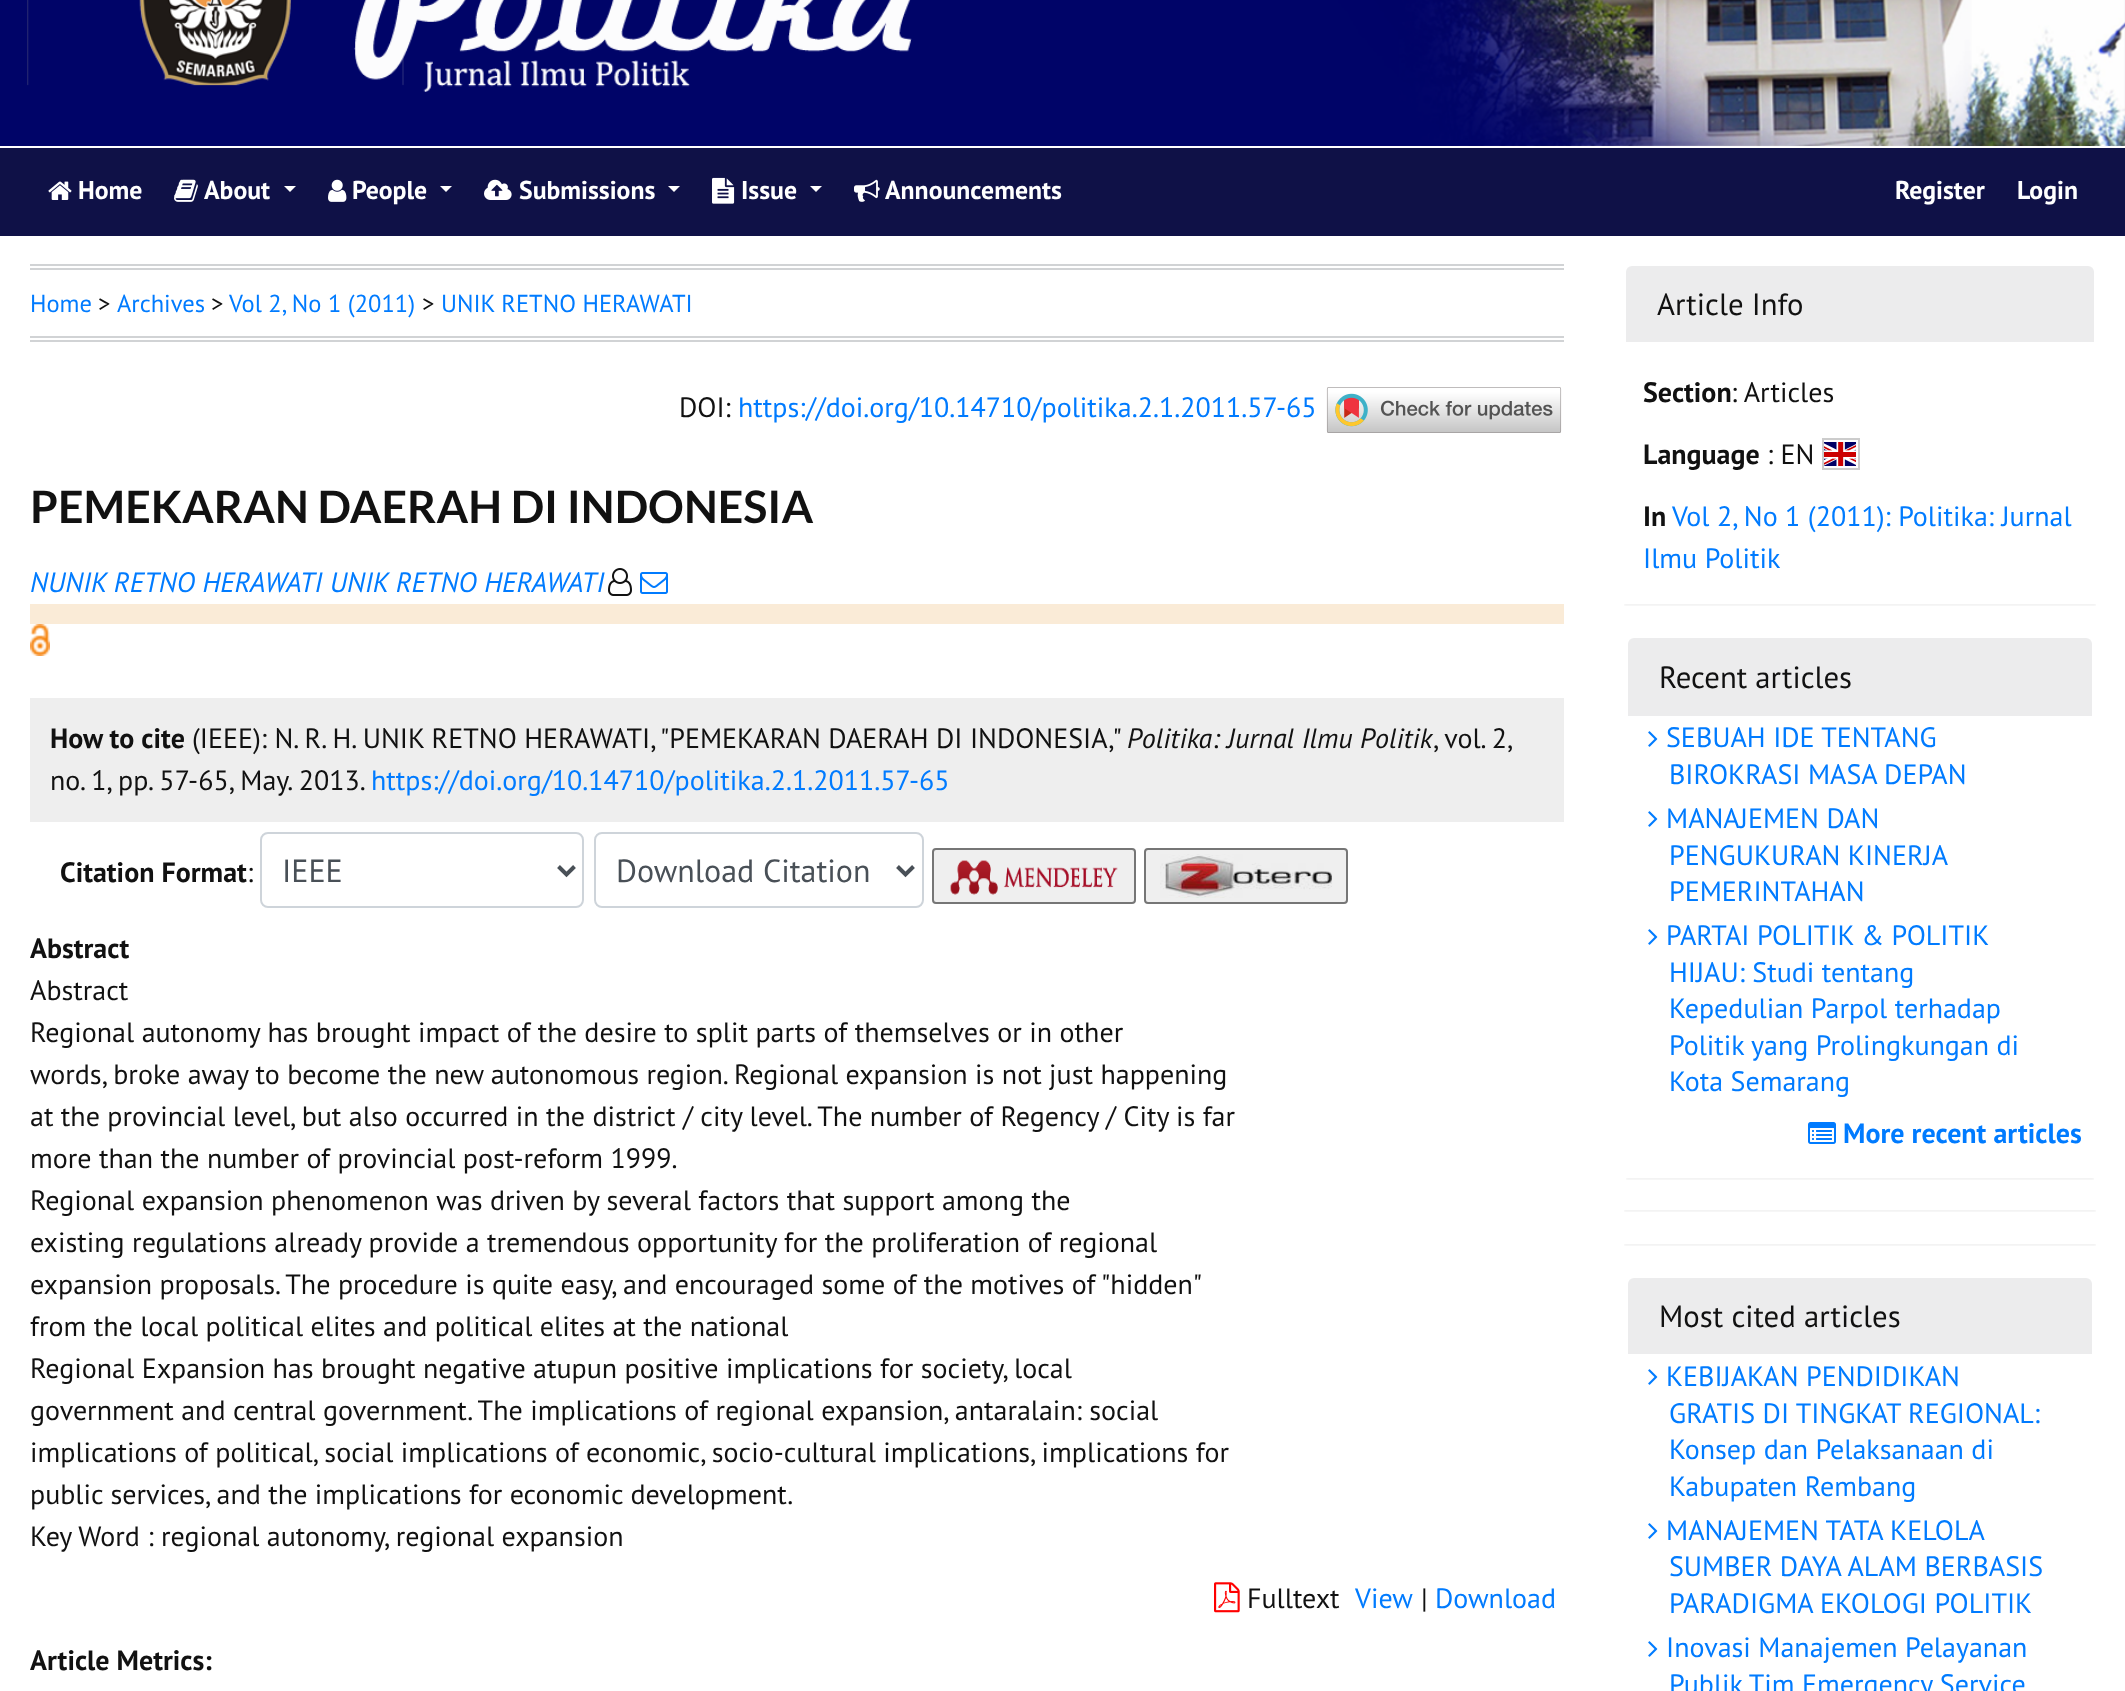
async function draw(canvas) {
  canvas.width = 2125
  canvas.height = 1691
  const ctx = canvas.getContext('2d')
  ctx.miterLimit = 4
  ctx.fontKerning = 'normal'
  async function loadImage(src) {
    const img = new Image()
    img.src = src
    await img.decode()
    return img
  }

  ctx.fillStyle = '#fff'
  ctx.fillRect(0, 0, 2125, 1691)
  ctx.drawImage(await loadImage('image0.png'), 0, 0, 2125, 146)
  ctx.fillStyle = '#0f1147'
  ctx.fillRect(0, 148, 2125, 88)
  ctx.drawImage(await loadImage('image1.png'), 48, 181, 24, 19)
  ctx.font = 'bold 25.75px PT Sans'
  ctx.fillStyle = '#fff'
  ctx.fillText('Home', 78, 199)
  ctx.drawImage(await loadImage('image2.png'), 174, 179, 24, 23)
  ctx.fillText('About', 204, 199)
  ctx.beginPath()
  ctx.moveTo(284, 186)
  ctx.lineTo(296, 186)
  ctx.lineTo(290, 192)
  ctx.closePath()
  ctx.fill()
  ctx.drawImage(await loadImage('image3.png'), 328, 179, 19, 23)
  ctx.fillText('People', 352, 199)
  ctx.beginPath()
  ctx.moveTo(440, 186)
  ctx.lineTo(452, 186)
  ctx.lineTo(446, 192)
  ctx.closePath()
  ctx.fill()
  ctx.drawImage(await loadImage('image4.png'), 484, 179, 28, 21)
  ctx.fillText('Submissions', 519, 199)
  ctx.beginPath()
  ctx.moveTo(668, 186)
  ctx.lineTo(680, 186)
  ctx.lineTo(674, 192)
  ctx.closePath()
  ctx.fill()
  ctx.drawImage(await loadImage('image5.png'), 712, 177, 23, 27)
  ctx.fillText('Issue', 741, 199)
  ctx.beginPath()
  ctx.moveTo(810, 186)
  ctx.lineTo(822, 186)
  ctx.lineTo(816, 192)
  ctx.closePath()
  ctx.fill()
  ctx.drawImage(await loadImage('image6.png'), 854, 179, 26, 23)
  ctx.fillText('Announcements', 885, 199)
  ctx.fillText('Register', 1895, 199)
  ctx.fillText('Login', 2017, 199)
  ctx.fillStyle = '#d1d3d5'
  ctx.fillRect(30, 264, 1534, 2)
  ctx.fillRect(30, 268, 1534, 2)
  ctx.fillRect(30, 336, 1534, 2)
  ctx.fillRect(30, 340, 1534, 2)
  ctx.font = '24.5px PT Sans'
  ctx.fillStyle = '#007bff'
  ctx.fillText('Home', 30, 312)
  ctx.fillStyle = '#111'
  ctx.fillText('>', 98, 312)
  ctx.fillStyle = '#007bff'
  ctx.fillText('Archives', 117, 312)
  ctx.fillStyle = '#111'
  ctx.fillText('>', 211, 312)
  ctx.fillStyle = '#007bff'
  ctx.fillText('Vol 2, No 1 (2011)', 229, 312)
  ctx.fillStyle = '#111'
  ctx.fillText('>', 422, 312)
  ctx.fillStyle = '#007bff'
  ctx.fillText('UNIK RETNO HERAWATI', 441, 312)
  ctx.font = '28px PT Sans'
  ctx.fillStyle = '#111'
  ctx.fillText('DOI:', 679, 417)
  ctx.fillStyle = '#007bff'
  ctx.fillText('https://doi.org/10.14710/politika.2.1.2011.57-65', 738, 417)
  ctx.drawImage(await loadImage('image7.png'), 1326, 387, 236, 46)
  ctx.font = 'bold 44.75px Lato'
  ctx.fillStyle = '#111'
  ctx.fillText('PEMEKARAN DAERAH DI INDONESIA', 30, 523)
  ctx.font = 'italic 28px PT Sans'
  ctx.fillStyle = '#007bff'
  ctx.fillText('NUNIK RETNO HERAWATI UNIK RETNO HERAWATI', 30, 592)
  ctx.drawImage(await loadImage('image8.png'), 608, 568, 24, 28)
  ctx.drawImage(await loadImage('image9.png'), 640, 572, 28, 22)
  ctx.fillStyle = '#faebd7'
  ctx.fillRect(30, 604, 1534, 20)
  ctx.drawImage(await loadImage('image10.png'), 30, 624, 20, 32)
  ctx.fillStyle = '#eee'
  ctx.fillRect(30, 698, 1534, 124)
  ctx.font = 'bold 28px PT Sans'
  ctx.fillStyle = '#111'
  ctx.fillText('How to cite', 50, 748)
  ctx.font = '28px PT Sans'
  ctx.fillText('(IEEE): N. R. H. UNIK RETNO HERAWATI, "PEMEKARAN DAERAH DI INDONESIA,"', 192, 748)
  ctx.font = 'italic 28px PT Sans'
  ctx.fillText('Politika: Jurnal Ilmu Politik', 1127, 748)
  ctx.font = '28px PT Sans'
  ctx.fillText(', vol. 2,', 1433, 748)
  ctx.fillText('no. 1, pp. 57-65, May. 2013.', 50, 790)
  ctx.fillStyle = '#007bff'
  ctx.fillText('https://doi.org/10.14710/politika.2.1.2011.57-65', 371, 790)
  ctx.font = 'bold 28px PT Sans'
  ctx.fillStyle = '#111'
  ctx.fillText('Citation Format', 60, 882)
  ctx.font = '28px PT Sans'
  ctx.fillText(':', 247, 882)
  ctx.beginPath()
  ctx.roundRect(261, 833, 322, 74, 7)
  ctx.strokeStyle = '#ced4da'
  ctx.lineWidth = 2
  ctx.stroke()
  ctx.beginPath()
  ctx.moveTo(558.5, 866.5)
  ctx.lineTo(566.5, 874.5)
  ctx.lineTo(574.5, 866.5)
  ctx.strokeStyle = '#495057'
  ctx.lineWidth = 4
  ctx.stroke()
  ctx.font = '32px PT Sans'
  ctx.fillStyle = '#495057'
  ctx.fillText('IEEE', 282, 882)
  ctx.beginPath()
  ctx.roundRect(595, 833, 328, 74, 7)
  ctx.strokeStyle = '#ced4da'
  ctx.lineWidth = 2
  ctx.stroke()
  ctx.beginPath()
  ctx.moveTo(897.5, 866.5)
  ctx.lineTo(905.5, 874.5)
  ctx.lineTo(913.5, 866.5)
  ctx.strokeStyle = '#495057'
  ctx.lineWidth = 4
  ctx.stroke()
  ctx.fillText('Download Citation', 616, 882)
  ctx.fillStyle = '#efefef'
  ctx.beginPath()
  ctx.roundRect(933, 849, 202, 54, 3)
  ctx.fill()
  ctx.strokeStyle = '#767676'
  ctx.lineWidth = 2
  ctx.stroke()
  ctx.drawImage(await loadImage('image11.png'), 950, 860, 168, 35)
  ctx.beginPath()
  ctx.roundRect(1145, 849, 202, 54, 3)
  ctx.fill()
  ctx.stroke()
  ctx.drawImage(await loadImage('image12.png'), 1160, 854, 172, 44)
  ctx.font = 'bold 28px PT Sans'
  ctx.fillStyle = '#111'
  ctx.fillText('Abstract', 30, 958)
  ctx.font = '28px PT Sans'
  ctx.fillText('Abstract', 30, 1000)
  ctx.fillText('Regional autonomy has brought impact of the desire to split parts of themselves or in other', 30, 1042)
  ctx.fillText('words, broke away to become the new autonomous region. Regional expansion is not just happening', 30, 1084)
  ctx.fillText('at the provincial level, but also occurred in the district / city level. The number of Regency / City is far', 30, 1126)
  ctx.fillText('more than the number of provincial post-reform 1999.', 30, 1168)
  ctx.fillText('Regional expansion phenomenon was driven by several factors that support among the', 30, 1210)
  ctx.fillText('existing regulations already provide a tremendous opportunity for the proliferation of regional', 30, 1252)
  ctx.fillText('expansion proposals. The procedure is quite easy, and encouraged some of the motives of "hidden"', 30, 1294)
  ctx.fillText('from the local political elites and political elites at the national', 30, 1336)
  ctx.fillText('Regional Expansion has brought negative atupun positive implications for society, local', 30, 1378)
  ctx.fillText('government and central government. The implications of regional expansion, antaralain: social', 30, 1420)
  ctx.fillText('implications of political, social implications of economic, socio-cultural implications, implications for', 30, 1462)
  ctx.fillText('public services, and the implications for economic development.', 30, 1504)
  ctx.fillText('Key Word : regional autonomy, regional expansion', 30, 1546)
  ctx.drawImage(await loadImage('image13.png'), 1214, 1582, 26, 31)
  ctx.fillText('Fulltext', 1247, 1608)
  ctx.fillStyle = '#007bff'
  ctx.fillText('View', 1355, 1608)
  ctx.fillStyle = '#111'
  ctx.fillText('|', 1421, 1608)
  ctx.fillStyle = '#007bff'
  ctx.fillText('Download', 1435, 1608)
  ctx.font = 'bold 28px PT Sans'
  ctx.fillStyle = '#111'
  ctx.fillText('Article Metrics:', 30, 1670)
  ctx.save()
  ctx.beginPath()
  ctx.rect(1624, 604, 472, 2)
  ctx.clip()
  ctx.fillStyle = '#0000000d'
  ctx.filter = 'blur(1px)'
  ctx.beginPath()
  ctx.rect(1624, 266, 472, 340)
  ctx.fill()
  ctx.filter = 'none'
  ctx.restore()
  ctx.fillStyle = '#ececed'
  ctx.beginPath()
  ctx.roundRect(1626, 266, 468, 76, [6, 6, 0, 0])
  ctx.fill()
  ctx.font = '30.75px PT Sans'
  ctx.fillStyle = '#111'
  ctx.fillText('Article Info', 1657, 315)
  ctx.font = 'bold 28px PT Sans'
  ctx.fillText('Section', 1643, 402)
  ctx.font = '28px PT Sans'
  ctx.fillText(': Articles', 1731, 402)
  ctx.font = 'bold 28px PT Sans'
  ctx.fillText('Language', 1643, 464)
  ctx.font = '28px PT Sans'
  ctx.fillText(': EN', 1767, 464)
  ctx.drawImage(await loadImage('image14.png'), 1824, 442, 32, 24)
  ctx.strokeStyle = '#ccc'
  ctx.strokeRect(1823, 439, 36, 30)
  ctx.font = 'bold 28px PT Sans'
  ctx.fillText('In', 1643, 526)
  ctx.font = '28px PT Sans'
  ctx.fillStyle = '#007bff'
  ctx.fillText('Vol 2, No 1 (2011): Politika: Jurnal', 1672, 526)
  ctx.fillText('Ilmu Politik', 1643, 568)
  ctx.save()
  ctx.beginPath()
  ctx.rect(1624, 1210, 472, 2)
  ctx.clip()
  ctx.fillStyle = '#0000000d'
  ctx.filter = 'blur(1px)'
  ctx.beginPath()
  ctx.rect(1624, 636, 472, 576)
  ctx.fill()
  ctx.filter = 'none'
  ctx.restore()
  ctx.save()
  ctx.beginPath()
  ctx.rect(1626, 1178, 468, 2)
  ctx.clip()
  ctx.fillStyle = '#0000000d'
  ctx.filter = 'blur(1px)'
  ctx.beginPath()
  ctx.rect(1626, 638, 468, 542)
  ctx.fill()
  ctx.filter = 'none'
  ctx.restore()
  ctx.fillStyle = '#ececed'
  ctx.beginPath()
  ctx.roundRect(1628, 638, 464, 78, [6, 6, 0, 0])
  ctx.fill()
  ctx.font = '30.75px PT Sans'
  ctx.fillStyle = '#111'
  ctx.fillText('Recent articles', 1659, 688)
  ctx.drawImage(await loadImage('image15.png'), 1648, 731, 10, 16)
  ctx.font = '28px PT Sans'
  ctx.fillStyle = '#007bff'
  ctx.fillText('SEBUAH IDE TENTANG', 1666, 747)
  ctx.fillText('BIROKRASI MASA DEPAN', 1669, 784)
  ctx.drawImage(await loadImage('image15.png'), 1648, 811, 10, 16)
  ctx.fillText('MANAJEMEN DAN', 1666, 828)
  ctx.fillText('PENGUKURAN KINERJA', 1669, 865)
  ctx.fillText('PEMERINTAHAN', 1669, 901)
  ctx.drawImage(await loadImage('image15.png'), 1648, 929, 10, 16)
  ctx.fillText('PARTAI POLITIK & POLITIK', 1666, 945)
  ctx.fillText('HIJAU: Studi tentang', 1669, 982)
  ctx.fillText('Kepedulian Parpol terhadap', 1669, 1018)
  ctx.fillText('Politik yang Prolingkungan di', 1669, 1055)
  ctx.fillText('Kota Semarang', 1669, 1091)
  ctx.drawImage(await loadImage('image16.png'), 1808, 1122, 28, 22)
  ctx.font = 'bold 28px PT Sans'
  ctx.fillText('More recent articles', 1843, 1143)
  ctx.save()
  ctx.beginPath()
  ctx.rect(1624, 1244, 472, 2)
  ctx.clip()
  ctx.fillStyle = '#0000000d'
  ctx.filter = 'blur(1px)'
  ctx.beginPath()
  ctx.rect(1624, 1242, 472, 4)
  ctx.fill()
  ctx.filter = 'none'
  ctx.restore()
  ctx.fillStyle = '#ececed'
  ctx.beginPath()
  ctx.roundRect(1628, 1278, 464, 76, [6, 6, 0, 0])
  ctx.fill()
  ctx.font = '30.75px PT Sans'
  ctx.fillStyle = '#111'
  ctx.fillText('Most cited articles', 1659, 1327)
  ctx.drawImage(await loadImage('image15.png'), 1648, 1369, 10, 16)
  ctx.font = '28px PT Sans'
  ctx.fillStyle = '#007bff'
  ctx.fillText('KEBIJAKAN PENDIDIKAN', 1666, 1386)
  ctx.fillText('GRATIS DI TINGKAT REGIONAL:', 1669, 1423)
  ctx.fillText('Konsep dan Pelaksanaan di', 1669, 1459)
  ctx.fillText('Kabupaten Rembang', 1669, 1496)
  ctx.drawImage(await loadImage('image15.png'), 1648, 1523, 10, 16)
  ctx.fillText('MANAJEMEN TATA KELOLA', 1666, 1540)
  ctx.fillText('SUMBER DAYA ALAM BERBASIS', 1669, 1576)
  ctx.fillText('PARADIGMA EKOLOGI POLITIK', 1669, 1613)
  ctx.drawImage(await loadImage('image15.png'), 1648, 1641, 10, 16)
  ctx.fillText('Inovasi Manajemen Pelayanan', 1666, 1657)
  ctx.fillText('Publik Tim Emergency Service', 1669, 1694)
}

draw(document.querySelector('canvas'))
